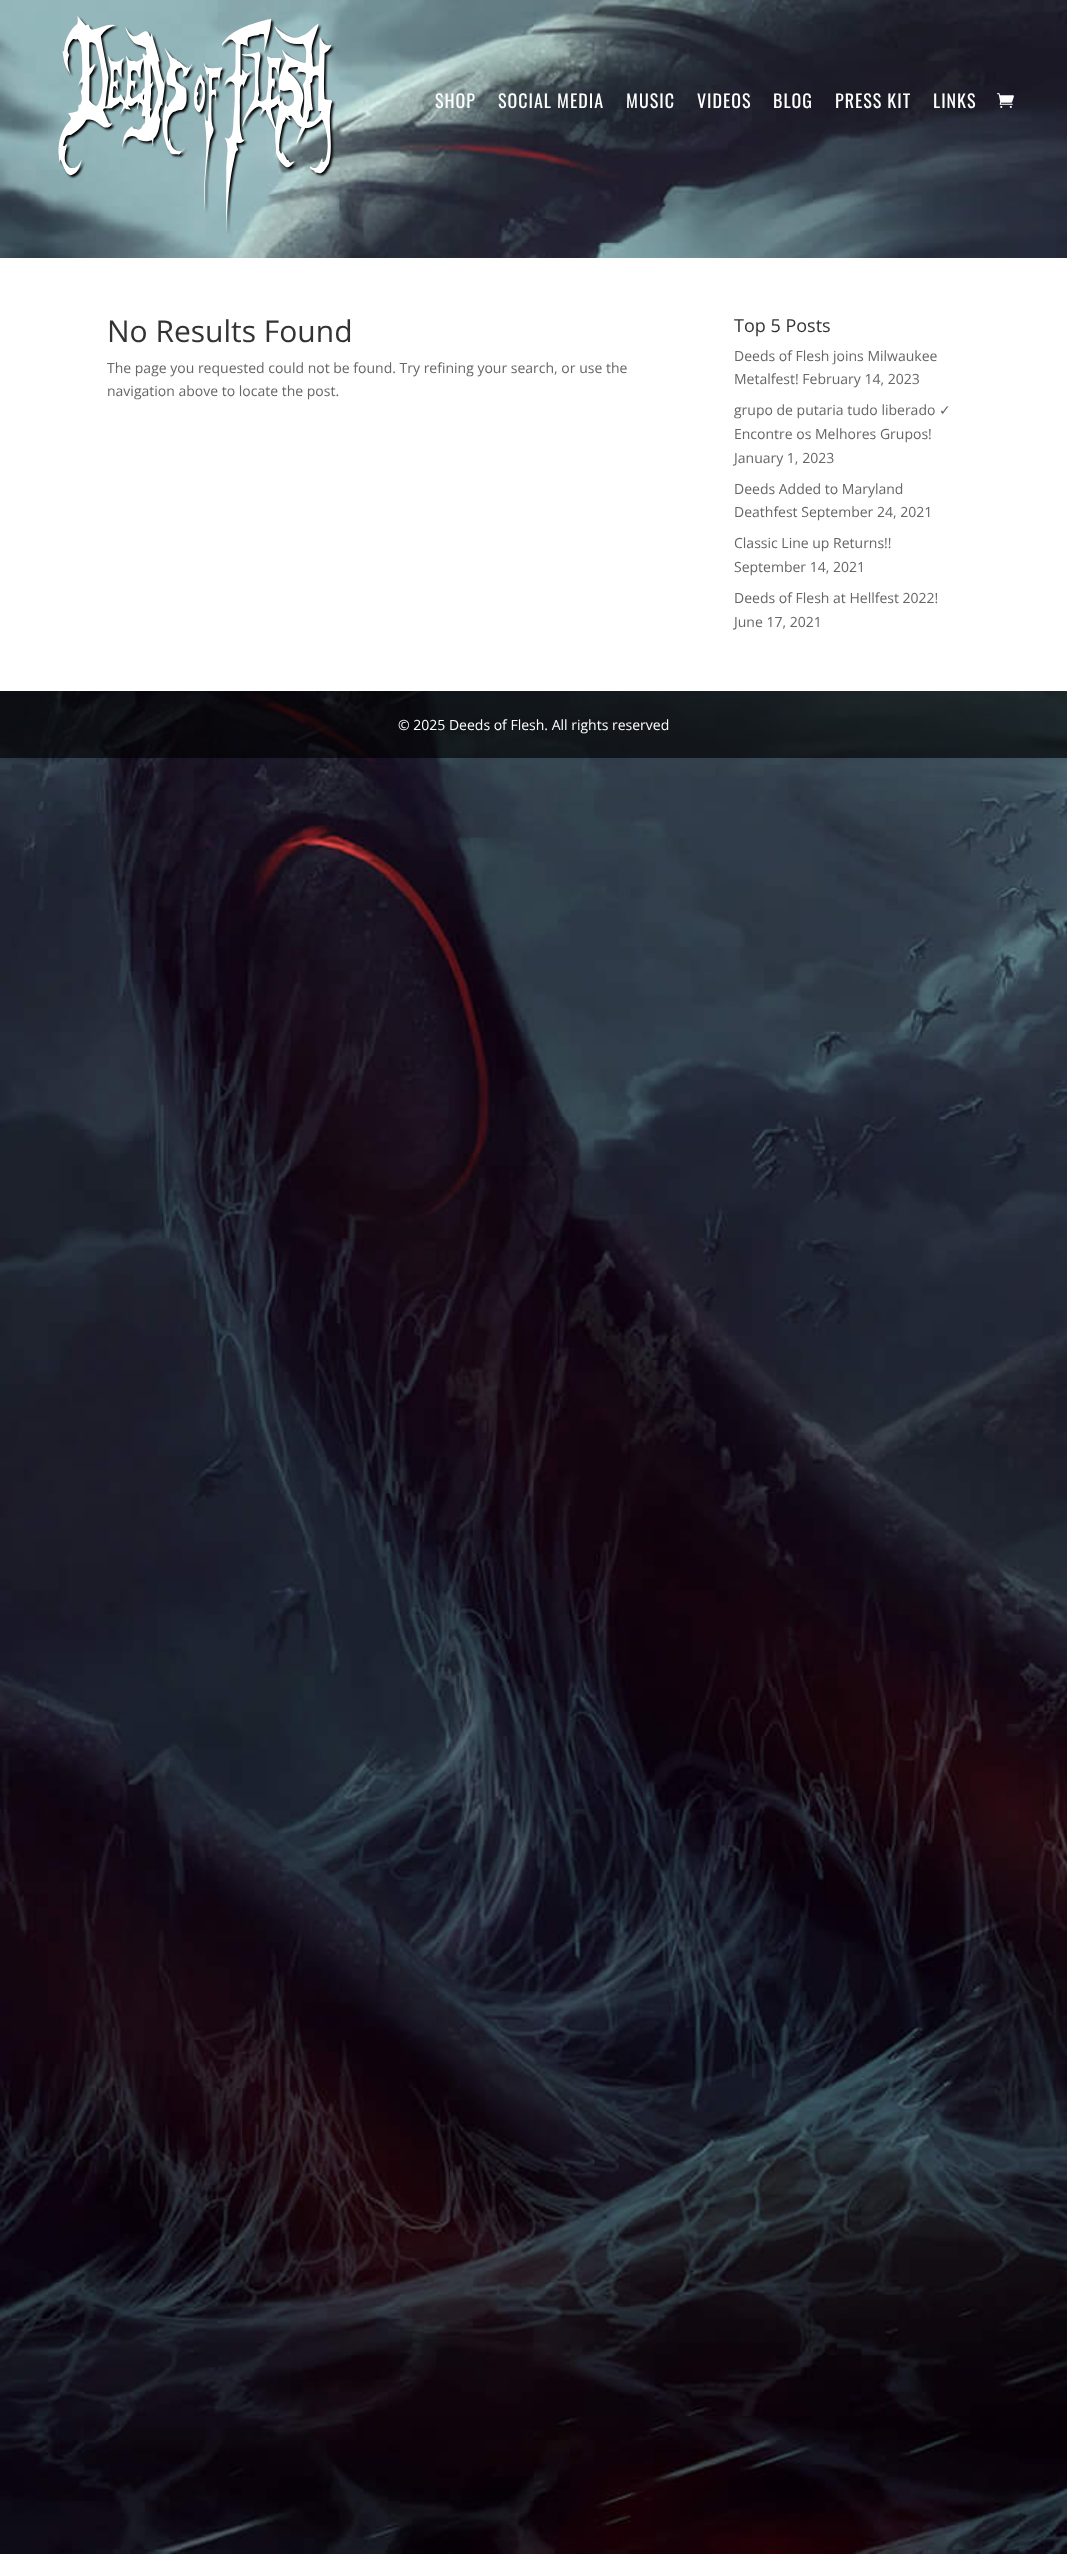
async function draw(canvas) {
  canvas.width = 1067
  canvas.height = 2554
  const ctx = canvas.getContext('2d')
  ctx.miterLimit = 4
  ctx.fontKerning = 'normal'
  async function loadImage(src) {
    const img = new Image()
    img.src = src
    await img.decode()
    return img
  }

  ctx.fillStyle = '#fff'
  ctx.fillRect(0, 0, 1067, 2554)
  ctx.drawImage(await loadImage('image0.png'), 0, 0, 1067, 2554)
  ctx.drawImage(await loadImage('image1.png'), 58, 16, 278, 218)
  ctx.letterSpacing = '1px'
  ctx.font = '18px Oswald'
  ctx.fillText('SHOP', 435, 108)
  ctx.fillText('SOCIAL MEDIA', 498, 108)
  ctx.fillText('MUSIC', 626, 108)
  ctx.fillText('VIDEOS', 697, 108)
  ctx.fillText('BLOG', 773, 108)
  ctx.fillText('PRESS KIT', 835, 108)
  ctx.fillText('LINKS', 933, 108)
  ctx.drawImage(await loadImage('image2.png'), 997, 93, 17, 15)
  ctx.fillRect(0, 258, 1067, 433)
  ctx.letterSpacing = '0px'
  ctx.font = '30px Open Sans'
  ctx.fillStyle = '#333'
  ctx.fillText('No Results Found', 107, 342)
  ctx.font = '14px Open Sans'
  ctx.fillStyle = '#666'
  ctx.fillText('The page you requested could not be found. Try refining your search, or use the', 107, 373)
  ctx.fillText('navigation above to locate the post.', 107, 396)
  ctx.font = '18px Open Sans'
  ctx.fillStyle = '#333'
  ctx.fillText('Top 5 Posts', 734, 332)
  ctx.font = '14px Open Sans'
  ctx.fillStyle = '#666'
  ctx.fillText('Deeds of Flesh joins Milwaukee', 734, 361)
  ctx.fillText('Metalfest! February 14, 2023', 734, 384)
  ctx.fillText('grupo de putaria tudo liberado', 734, 415)
  ctx.font = '14px DejaVu Sans'
  ctx.fillText('✓', 939, 415)
  ctx.font = '14px Open Sans'
  ctx.fillText('Encontre os Melhores Grupos!', 734, 439)
  ctx.fillText('January 1, 2023', 734, 463)
  ctx.fillText('Deeds Added to Maryland', 734, 494)
  ctx.fillText('Deathfest September 24, 2021', 734, 517)
  ctx.fillText('Classic Line up Returns!!', 734, 548)
  ctx.fillText('September 14, 2021', 734, 572)
  ctx.fillText('Deeds of Flesh at Hellfest 2022!', 734, 603)
  ctx.fillText('June 17, 2021', 734, 627)
  ctx.fillStyle = '#000000a6'
  ctx.fillRect(0, 691, 1067, 67)
  ctx.fillStyle = '#fff'
  ctx.fillText('© 2025 Deeds of Flesh. All rights reserved', 398, 730)
}

draw(document.querySelector('canvas'))
